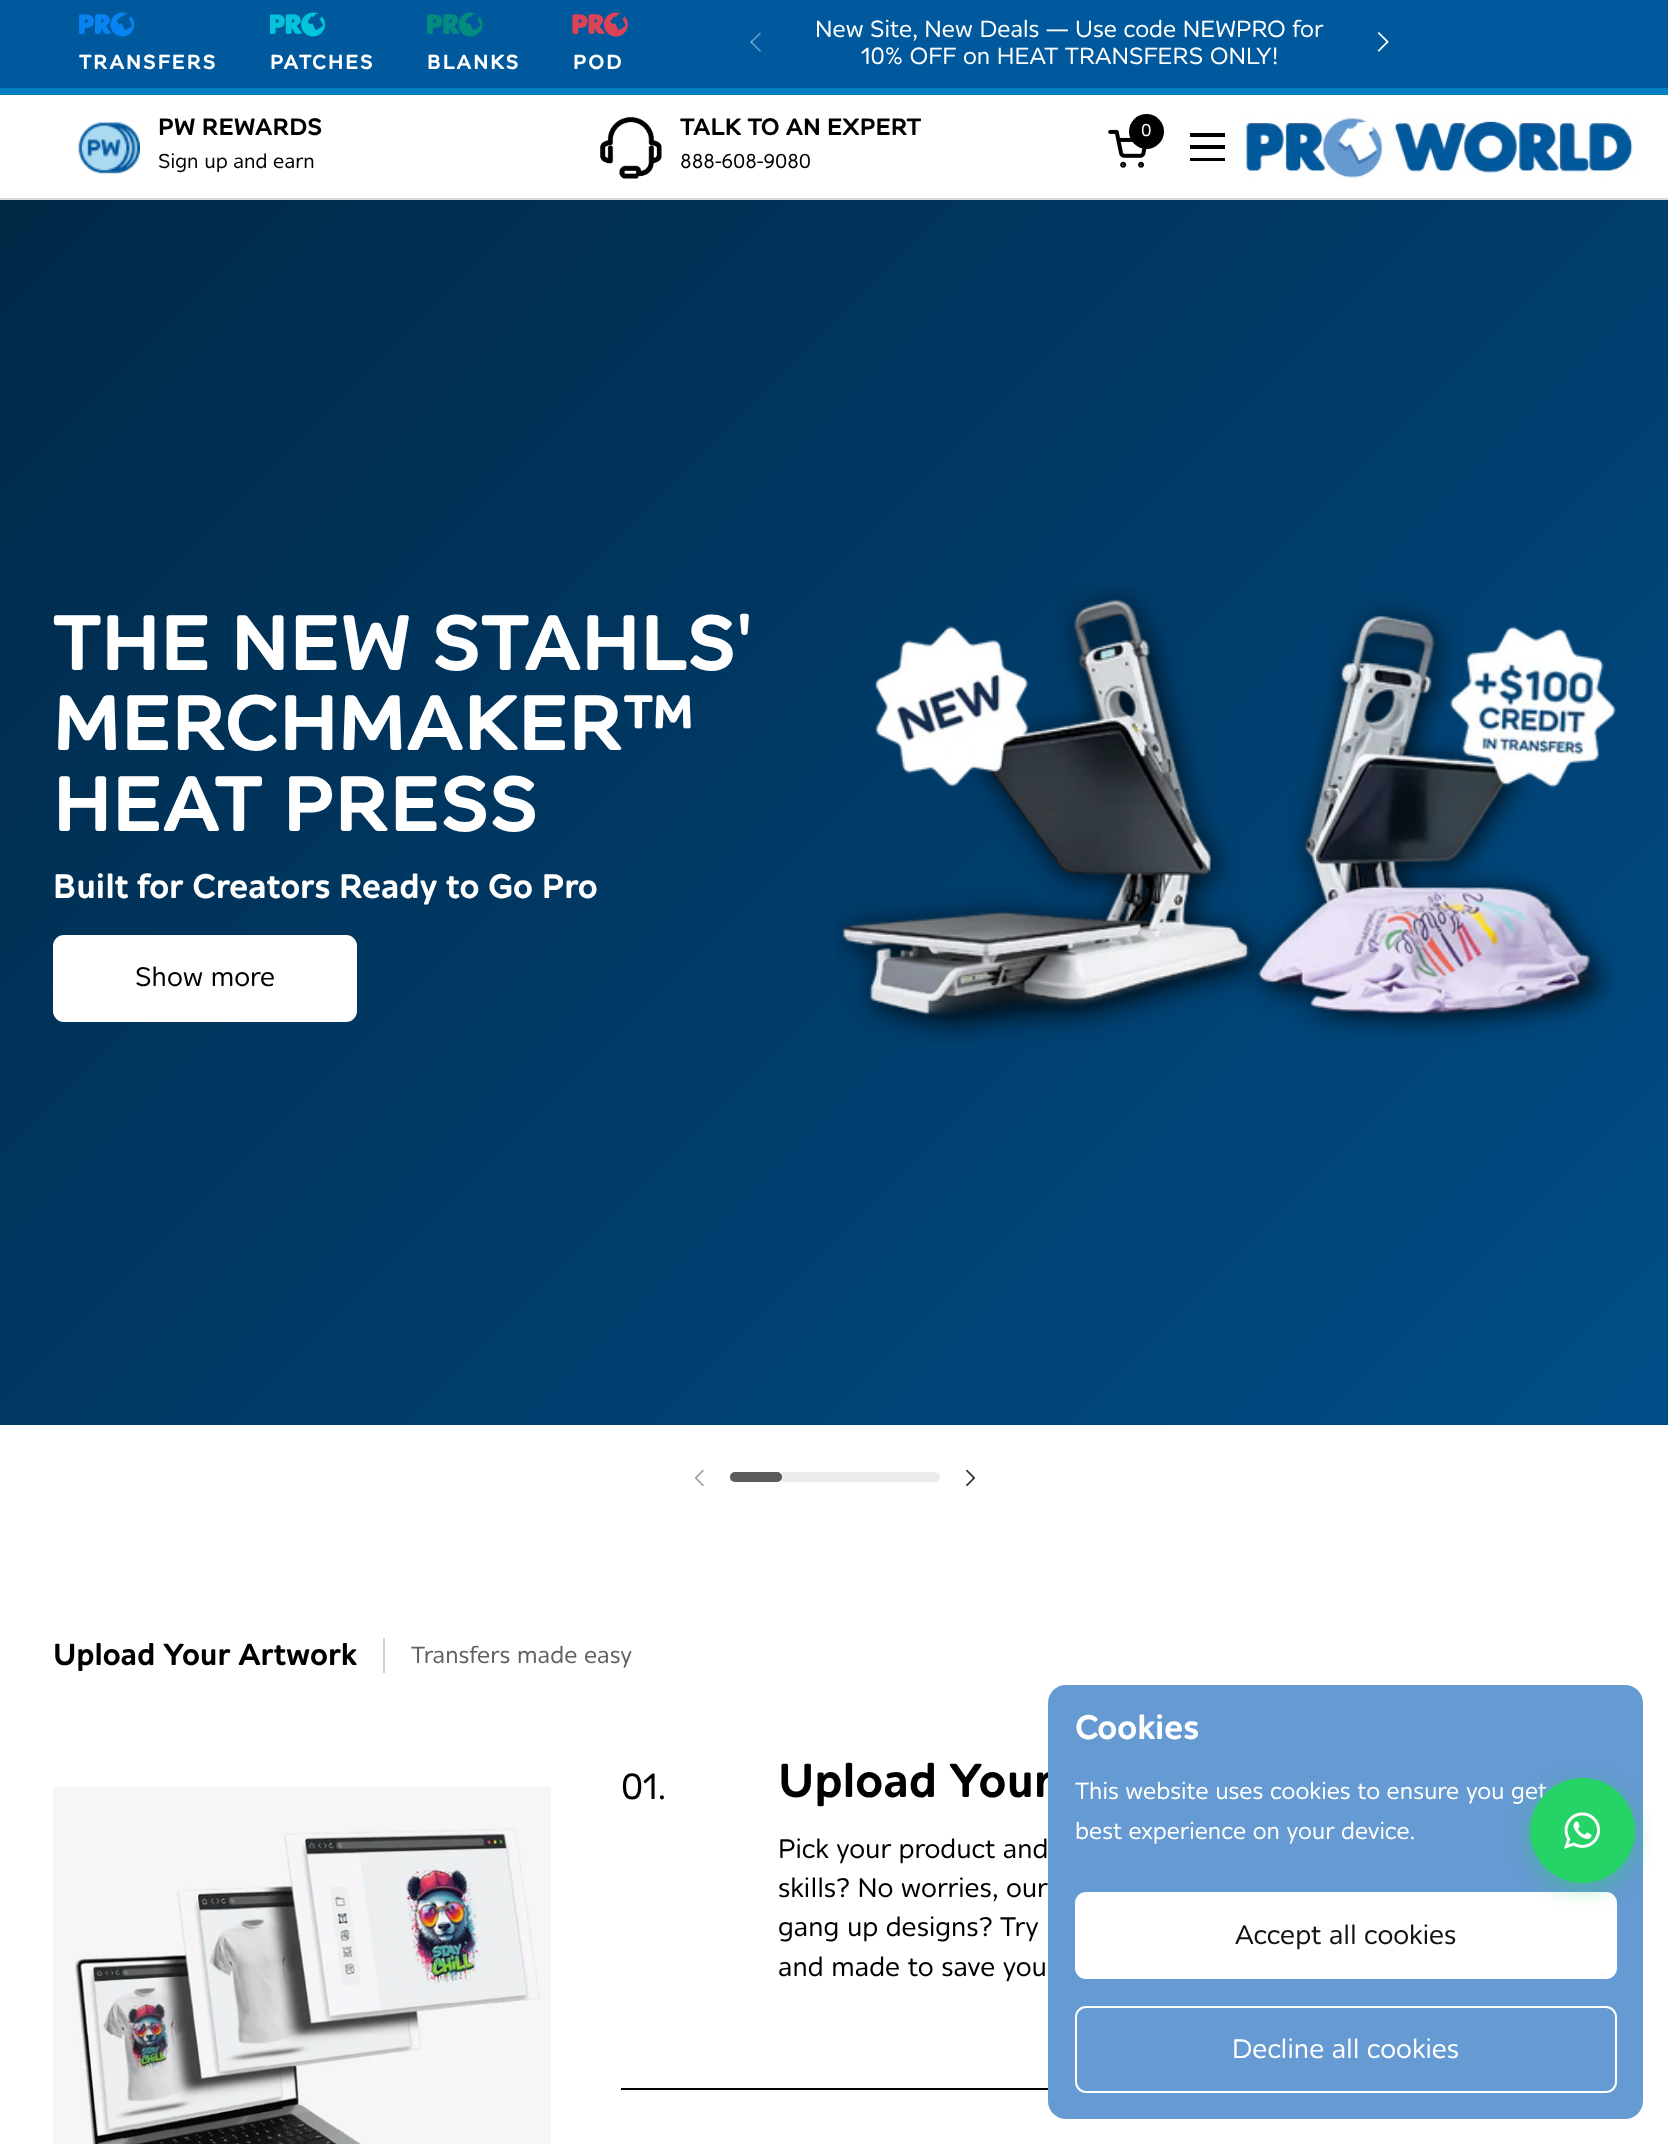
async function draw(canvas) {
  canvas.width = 1668
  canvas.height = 2144
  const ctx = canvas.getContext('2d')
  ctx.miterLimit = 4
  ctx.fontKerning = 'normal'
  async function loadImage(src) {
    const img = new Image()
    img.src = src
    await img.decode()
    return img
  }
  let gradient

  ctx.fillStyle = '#fff'
  ctx.fillRect(0, 0, 1668, 2144)
  ctx.fillStyle = '#00599c'
  ctx.fillRect(0, 0, 1668, 88)
  ctx.drawImage(await loadImage('image0.png'), 79, 12, 56, 25)
  ctx.letterSpacing = '1.75px'
  ctx.font = 'bold 21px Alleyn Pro'
  ctx.fillStyle = '#fff'
  ctx.fillText('TRANSFERS', 79, 69)
  ctx.drawImage(await loadImage('image1.png'), 270, 12, 56, 25)
  ctx.fillText('PATCHES', 270, 69)
  ctx.drawImage(await loadImage('image2.png'), 427, 12, 56, 25)
  ctx.fillText('BLANKS', 427, 69)
  ctx.drawImage(await loadImage('image3.png'), 572, 12, 56, 25)
  ctx.fillText('POD', 573, 69)
  ctx.drawImage(await loadImage('image4.png'), 750, 32, 11, 20)
  ctx.letterSpacing = '0px'
  ctx.font = '24.5px Alleyn Pro'
  ctx.fillText('New Site, New Deals — Use code NEWPRO for', 815, 37)
  ctx.fillText('10% OFF on HEAT TRANSFERS ONLY!', 861, 64)
  ctx.drawImage(await loadImage('image5.png'), 1377, 32, 12, 20)
  ctx.fillStyle = '#0180c2'
  ctx.fillRect(0, 88, 1668, 7)
  ctx.drawImage(await loadImage('image6.png'), 78, 122, 62, 52)
  ctx.font = 'bold 24.5px Alleyn Pro'
  ctx.fillStyle = '#000'
  ctx.fillText('PW REWARDS', 158, 135)
  ctx.font = '21px Alleyn Pro'
  ctx.fillText('Sign up and earn', 158, 168)
  ctx.drawImage(await loadImage('image7.png'), 600, 117, 62, 62)
  ctx.font = 'bold 24.5px Alleyn Pro'
  ctx.fillText('TALK TO AN EXPERT', 680, 135)
  ctx.font = '21px Alleyn Pro'
  ctx.fillText('888-608-9080', 680, 168)
  ctx.beginPath()
  ctx.arc(1146.5, 131.5, 17.5, 0, 2 * Math.PI)
  ctx.fill()
  ctx.font = '18px Alleyn Pro'
  ctx.fillStyle = '#fff'
  ctx.fillText('0', 1141, 136)
  ctx.drawImage(await loadImage('image8.png'), 1108, 129, 39, 39)
  ctx.fillStyle = '#000'
  ctx.fillRect(1190, 133, 35, 4)
  ctx.fillRect(1190, 145, 35, 4)
  ctx.fillRect(1190, 158, 35, 3)
  ctx.drawImage(await loadImage('image9.png'), 1244, 117, 390, 62)
  ctx.fillStyle = '#d9d9d9'
  ctx.fillRect(0, 198, 1668, 2)
  gradient = ctx.createLinearGradient(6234, 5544, 445, -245)
  gradient.addColorStop(0, '#a5c4e5')
  gradient.addColorStop(0.33, '#659ad2')
  gradient.addColorStop(0.67, '#005a9d')
  gradient.addColorStop(1, '#002847')
  ctx.fillStyle = gradient
  ctx.fillRect(0, 200, 1668, 1225)
  ctx.font = 'bold 80.5px Alleyn Pro'
  ctx.fillStyle = '#fff'
  ctx.fillText('THE NEW STAHLS\'', 53, 670)
  ctx.fillText('MERCHMAKER™', 53, 750)
  ctx.fillText('HEAT PRESS', 53, 831)
  ctx.font = 'bold 35px Alleyn Pro'
  ctx.fillText('Built for Creators Ready to Go Pro', 53, 898)
  ctx.beginPath()
  ctx.roundRect(54, 936, 302, 85, 10)
  ctx.fill()
  ctx.strokeStyle = '#fff'
  ctx.lineWidth = 2
  ctx.stroke()
  ctx.font = '28px Alleyn Pro'
  ctx.fillStyle = '#000'
  ctx.fillText('Show more', 135, 986)
  ctx.drawImage(await loadImage('image10.png'), 835, 585, 782, 458)
  ctx.drawImage(await loadImage('image11.png'), 695, 1469, 9, 17)
  ctx.beginPath()
  ctx.roundRect(730, 1472, 52, 10, 5)
  ctx.fill()
  ctx.fillStyle = '#ffffff5c'
  ctx.beginPath()
  ctx.roundRect(730, 1472, 52, 10, 5)
  ctx.fill()
  ctx.fillStyle = '#ebebeb'
  ctx.fillRect(782, 1472, 105, 10)
  ctx.beginPath()
  ctx.roundRect(887, 1472, 53, 10, [0, 5, 5, 0])
  ctx.fill()
  ctx.drawImage(await loadImage('image12.png'), 966, 1469, 9, 18)
  ctx.font = 'bold 31.5px Alleyn Pro'
  ctx.fillStyle = '#000'
  ctx.fillText('Upload Your Artwork', 53, 1665)
  ctx.fillStyle = '#d0d0d0'
  ctx.fillRect(383, 1638, 2, 35)
  ctx.font = '24.5px Alleyn Pro'
  ctx.fillStyle = '#616161'
  ctx.fillText('Transfers made easy', 411, 1663)
  ctx.drawImage(await loadImage('image13.png'), 53, 1787, 498, 357)
  ctx.font = '38px Alleyn Pro'
  ctx.fillStyle = '#000'
  ctx.fillText('01.', 621, 1799)
  ctx.font = 'bold 49px Alleyn Pro'
  ctx.fillText('Upload Your', 778, 1797)
  ctx.font = '28px Alleyn Pro'
  ctx.fillText('Pick your product and', 778, 1858)
  ctx.fillText('skills? No worries, our', 778, 1897)
  ctx.fillText('gang up designs? Try', 778, 1936)
  ctx.fillText('and made to save you', 778, 1976)
  ctx.fillRect(621, 2088, 427, 2)
  ctx.fillStyle = '#659ad2'
  ctx.beginPath()
  ctx.roundRect(1048, 1685, 595, 434, 18)
  ctx.fill()
  ctx.font = 'bold 35px Alleyn Pro'
  ctx.fillStyle = '#fff'
  ctx.fillText('Cookies', 1075, 1739)
  ctx.font = '24.5px Alleyn Pro'
  ctx.fillText('This website uses cookies to ensure you get', 1075, 1799)
  ctx.fillText('best experience on your device.', 1075, 1839)
  ctx.beginPath()
  ctx.roundRect(1076, 1893, 540, 85, 10)
  ctx.fill()
  ctx.stroke()
  ctx.font = '28px Alleyn Pro'
  ctx.fillStyle = '#111'
  ctx.fillText('Accept all cookies', 1235, 1944)
  ctx.beginPath()
  ctx.roundRect(1076, 2007, 540, 85, 10)
  ctx.stroke()
  ctx.fillStyle = '#fff'
  ctx.fillText('Decline all cookies', 1232, 2058)
  ctx.fillStyle = '#25d36666'
  ctx.filter = 'blur(10.5px)'
  ctx.beginPath()
  ctx.roundRect(1530, 1785, 105, 105, 52.5)
  ctx.fill()
  ctx.filter = 'none'
  ctx.fillStyle = '#25d366'
  ctx.beginPath()
  ctx.arc(1582.5, 1830.5, 52.5, 0, 2 * Math.PI)
  ctx.fill()
  ctx.drawImage(await loadImage('image14.png'), 1564, 1812, 37, 37)
}

draw(document.querySelector('canvas'))
